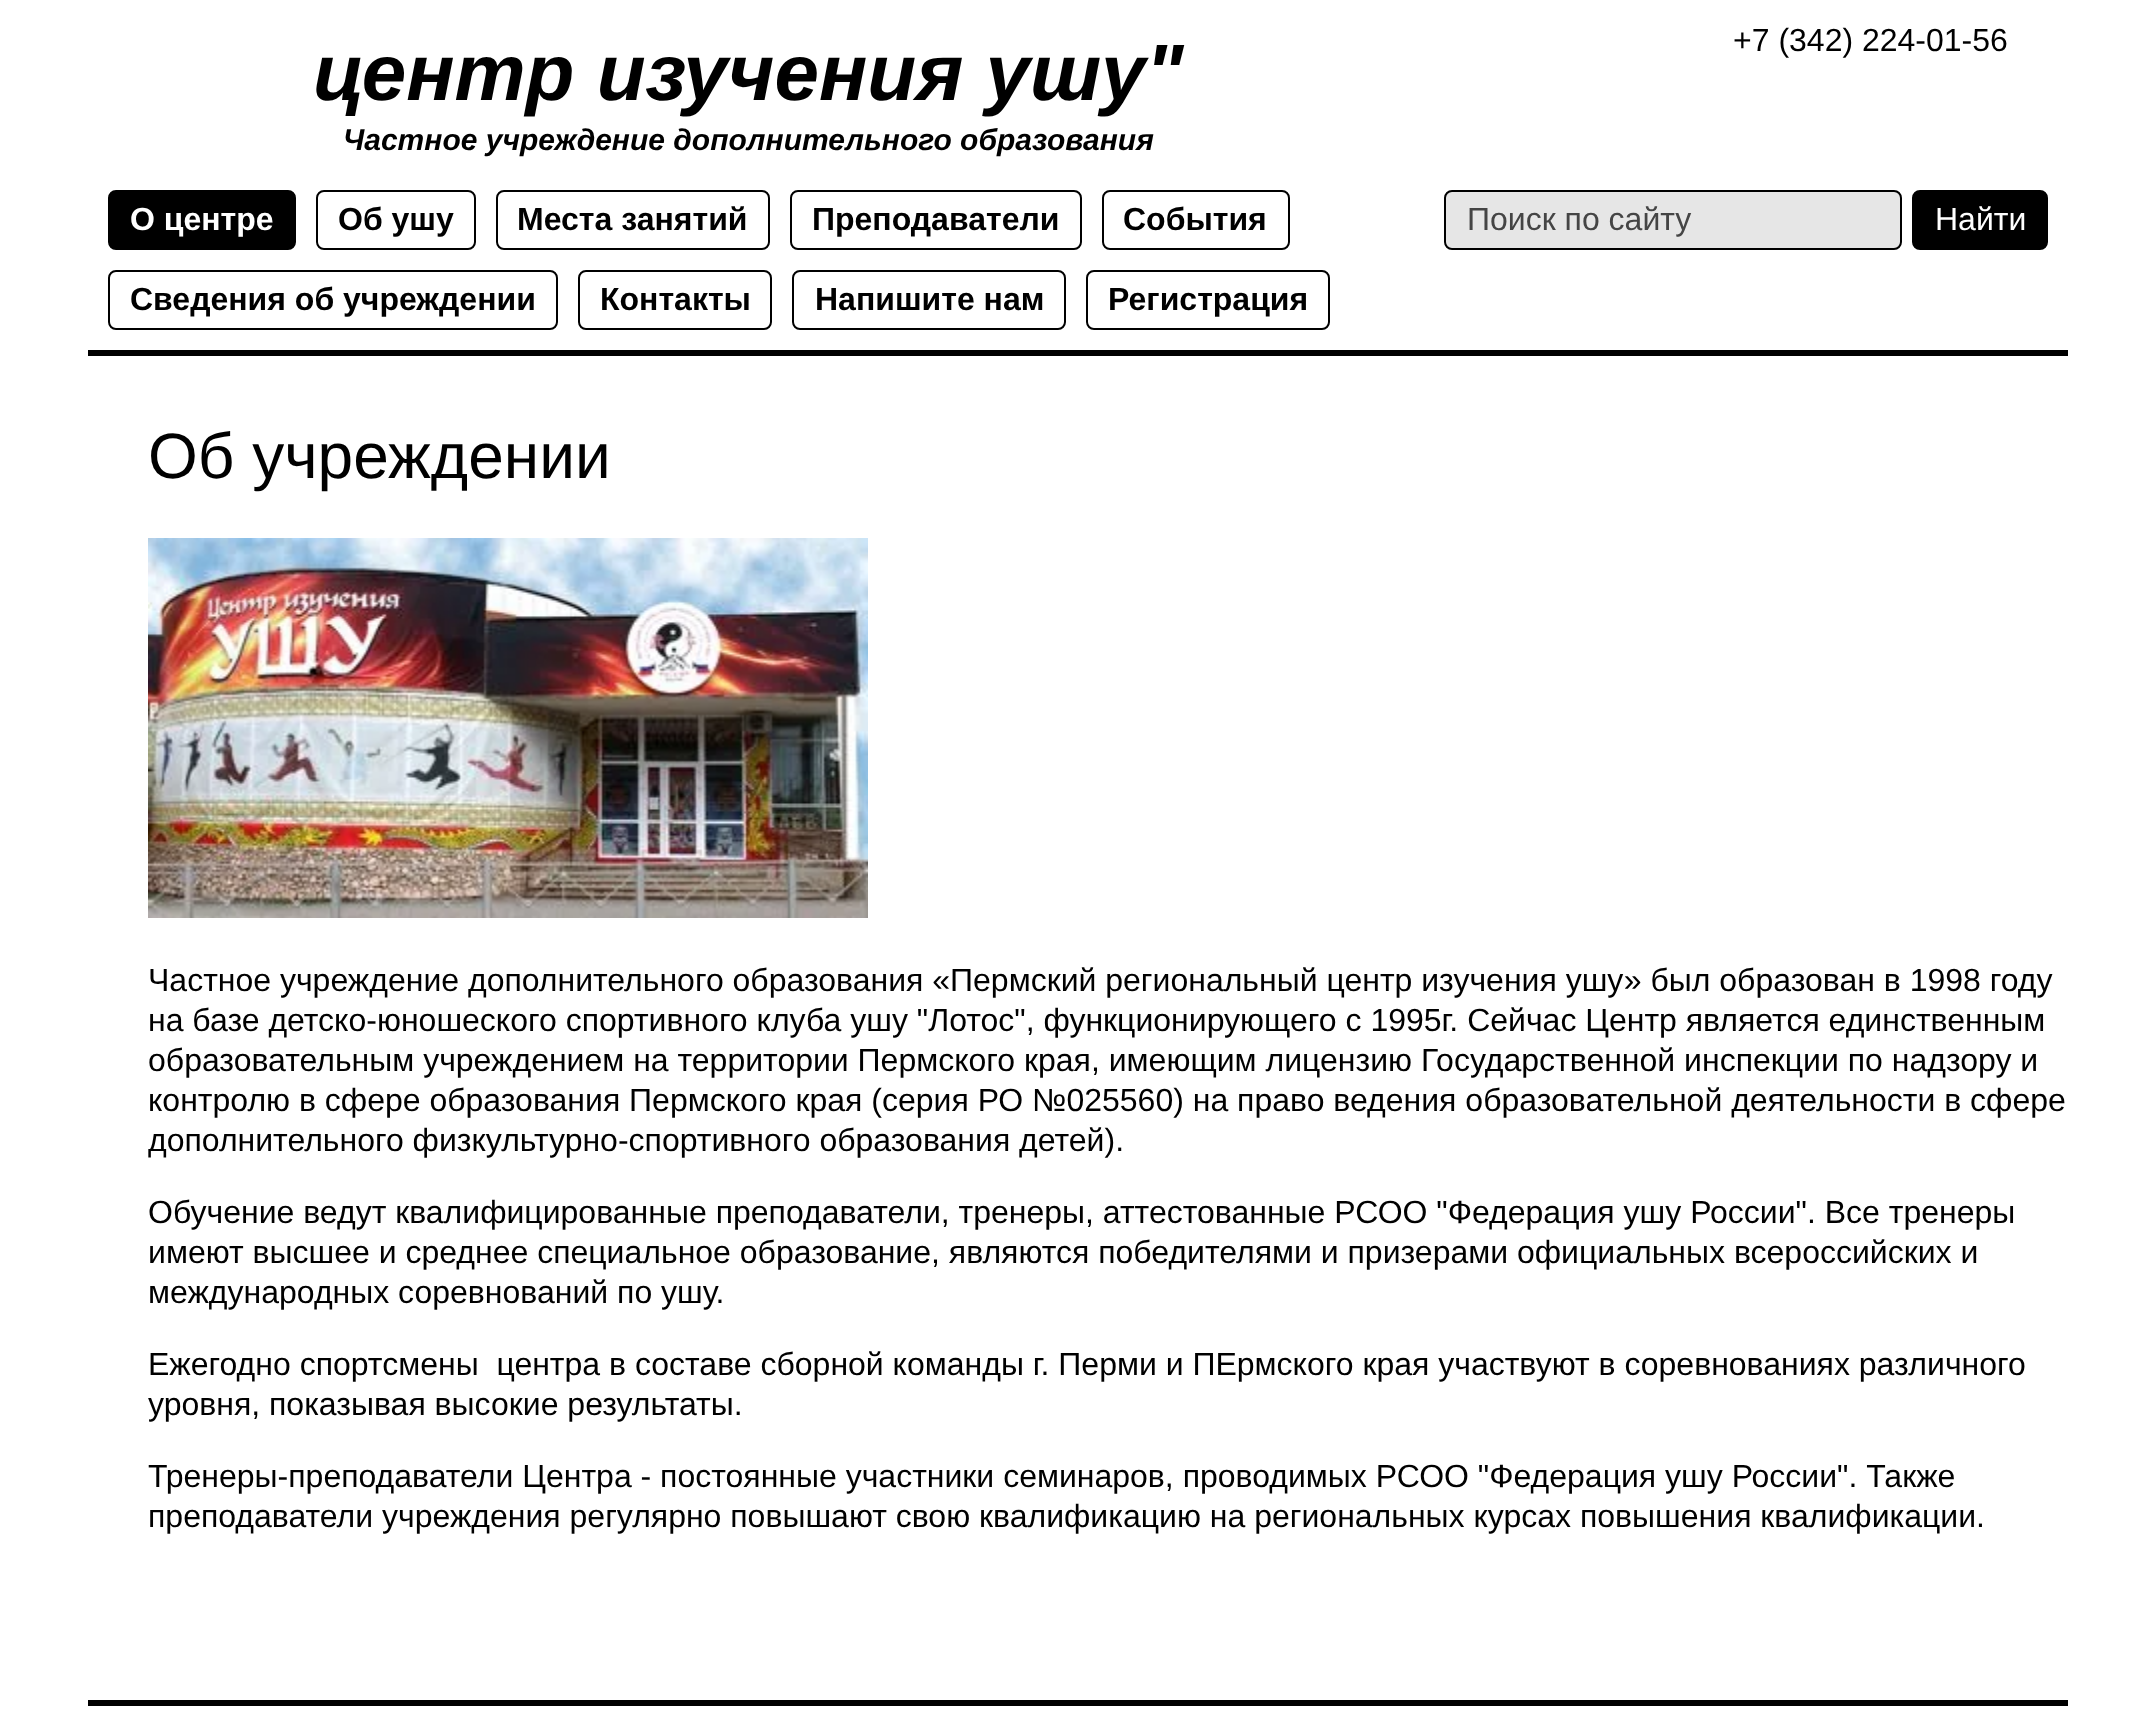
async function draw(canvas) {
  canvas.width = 2155
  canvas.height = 1724
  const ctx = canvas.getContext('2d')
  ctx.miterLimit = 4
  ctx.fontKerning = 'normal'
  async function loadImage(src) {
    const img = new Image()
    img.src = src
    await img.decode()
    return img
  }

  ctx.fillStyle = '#fff'
  ctx.fillRect(0, 0, 2155, 1724)
  ctx.fillStyle = '#000'
  ctx.fillRect(88, 350, 1980, 6)
  ctx.font = 'italic bold 80px Liberation Sans'
  ctx.fillText('центр изучения ушу"', 313, 100)
  ctx.font = 'italic bold 30px Liberation Sans'
  ctx.fillText('Частное учреждение дополнительного образования', 343, 150)
  ctx.font = '32px Liberation Sans'
  ctx.fillText('+7 (342) 224-01-56', 1733, 51)
  ctx.beginPath()
  ctx.roundRect(109, 191, 186, 58, 7)
  ctx.fill()
  ctx.strokeStyle = '#000'
  ctx.lineWidth = 2
  ctx.stroke()
  ctx.font = 'bold 32px Liberation Sans'
  ctx.fillStyle = '#fff'
  ctx.fillText('О центре', 130, 230)
  ctx.beginPath()
  ctx.roundRect(317, 191, 158, 58, 7)
  ctx.stroke()
  ctx.fillStyle = '#000'
  ctx.fillText('Об ушу', 338, 230)
  ctx.beginPath()
  ctx.roundRect(497, 191, 272, 58, 7)
  ctx.stroke()
  ctx.fillText('Места занятий', 517, 230)
  ctx.beginPath()
  ctx.roundRect(791, 191, 290, 58, 7)
  ctx.stroke()
  ctx.fillText('Преподаватели', 812, 230)
  ctx.beginPath()
  ctx.roundRect(1103, 191, 186, 58, 7)
  ctx.stroke()
  ctx.fillText('События', 1123, 230)
  ctx.beginPath()
  ctx.roundRect(109, 271, 448, 58, 7)
  ctx.stroke()
  ctx.fillText('Сведения об учреждении', 130, 310)
  ctx.beginPath()
  ctx.roundRect(579, 271, 192, 58, 7)
  ctx.stroke()
  ctx.fillText('Контакты', 600, 310)
  ctx.beginPath()
  ctx.roundRect(793, 271, 272, 58, 7)
  ctx.stroke()
  ctx.fillText('Напишите нам', 815, 310)
  ctx.beginPath()
  ctx.roundRect(1087, 271, 242, 58, 7)
  ctx.stroke()
  ctx.fillText('Регистрация', 1108, 310)
  ctx.fillStyle = '#e6e6e6'
  ctx.beginPath()
  ctx.roundRect(1445, 191, 456, 58, 7)
  ctx.fill()
  ctx.stroke()
  ctx.font = '32px Liberation Sans'
  ctx.fillStyle = '#454545'
  ctx.fillText('Поиск по сайту', 1467, 230)
  ctx.fillStyle = '#000'
  ctx.beginPath()
  ctx.roundRect(1913, 191, 134, 58, 7)
  ctx.fill()
  ctx.stroke()
  ctx.fillStyle = '#fff'
  ctx.fillText('Найти', 1935, 230)
  ctx.font = '64px Liberation Sans'
  ctx.fillStyle = '#000'
  ctx.fillText('Об учреждении', 148, 478)
  ctx.drawImage(await loadImage('image0.png'), 148, 538, 720, 380)
  ctx.font = '32px Liberation Sans'
  ctx.fillText('Частное учреждение дополнительного образования «Пермский региональный центр изучения ушу» был образован в 1998 году', 148, 991)
  ctx.fillText('на базе детско-юношеского спортивного клуба ушу "Лотос", функционирующего с 1995г. Сейчас Центр является единственным', 148, 1031)
  ctx.fillText('образовательным учреждением на территории Пермского края, имеющим лицензию Государственной инспекции по надзору и', 148, 1071)
  ctx.fillText('контролю в сфере образования Пермского края (серия РО №025560) на право ведения образовательной деятельности в сфере', 148, 1111)
  ctx.fillText('дополнительного физкультурно-спортивного образования детей).', 148, 1151)
  ctx.fillText('Обучение ведут квалифицированные преподаватели, тренеры, аттестованные РСОО "Федерация ушу России". Все тренеры', 148, 1223)
  ctx.fillText('имеют высшее и среднее специальное образование, являются победителями и призерами официальных всероссийских и', 148, 1263)
  ctx.fillText('международных соревнований по ушу.', 148, 1303)
  ctx.fillText('Ежегодно спортсмены  центра в составе сборной команды г. Перми и ПЕрмского края участвуют в соревнованиях различного', 148, 1375)
  ctx.fillText('уровня, показывая высокие результаты.', 148, 1415)
  ctx.fillText('Тренеры-преподаватели Центра - постоянные участники семинаров, проводимых РСОО "Федерация ушу России". Также', 148, 1487)
  ctx.fillText('преподаватели учреждения регулярно повышают свою квалификацию на региональных курсах повышения квалификации.', 148, 1527)
  ctx.fillRect(88, 1700, 1980, 6)
}

draw(document.querySelector('canvas'))
